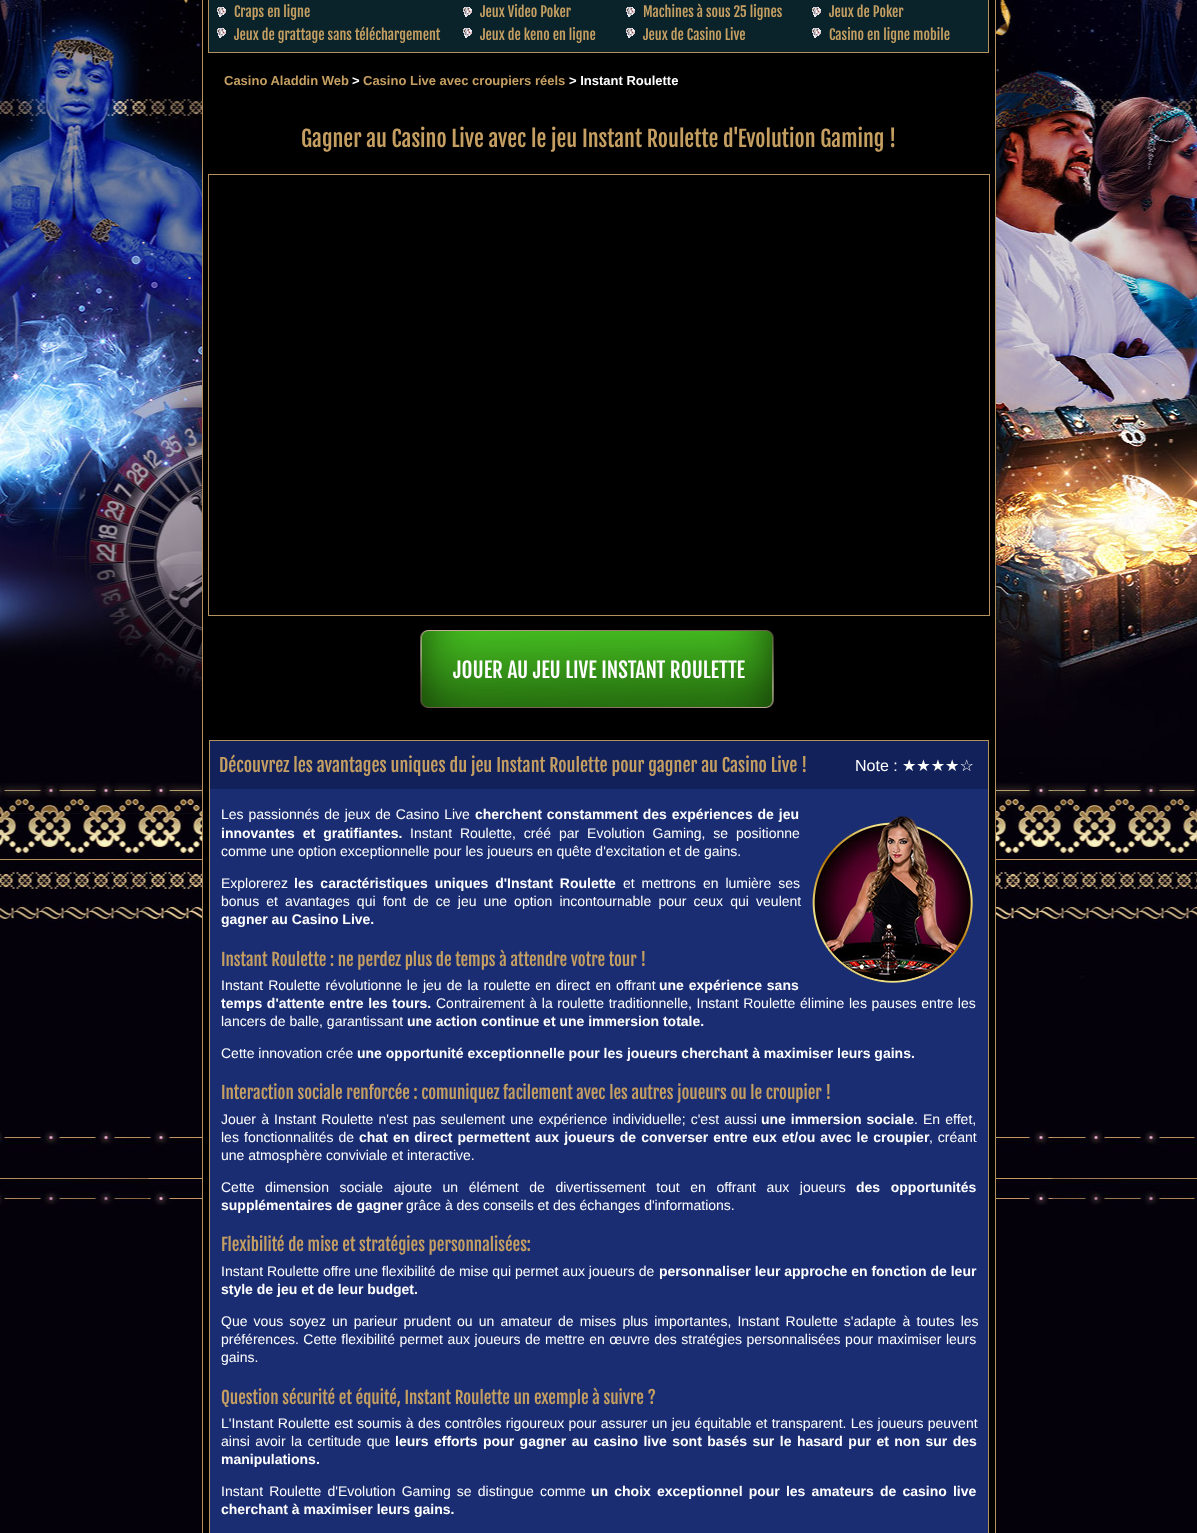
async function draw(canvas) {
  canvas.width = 1197
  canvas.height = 1533
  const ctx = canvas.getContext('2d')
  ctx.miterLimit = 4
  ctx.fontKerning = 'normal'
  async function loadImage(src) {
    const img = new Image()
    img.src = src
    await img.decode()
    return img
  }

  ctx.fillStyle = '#04010a'
  ctx.fillRect(0, 0, 1197, 1533)
  ctx.drawImage(await loadImage('image0.png'), 0, 0, 1197, 1206)
  ctx.fillStyle = '#b4925d'
  ctx.fillRect(202, 0, 794, 1533)
  ctx.fillStyle = '#000'
  ctx.fillRect(203, 0, 792, 1533)
  ctx.fillStyle = '#b4925d'
  ctx.fillRect(208, 0, 781, 53)
  ctx.fillStyle = '#0a232a'
  ctx.fillRect(209, 0, 779, 52)
  ctx.drawImage(await loadImage('image1.png'), 217, 7, 9, 10)
  ctx.font = '14px Fjalla One'
  ctx.fillStyle = '#c59f62'
  ctx.fillText('Craps en ligne', 234, 17)
  ctx.drawImage(await loadImage('image1.png'), 463, 7, 9, 10)
  ctx.fillText('Jeux Video Poker', 480, 17)
  ctx.drawImage(await loadImage('image1.png'), 626, 7, 9, 10)
  ctx.fillText('Machines à sous 25 lignes', 643, 17)
  ctx.drawImage(await loadImage('image1.png'), 812, 7, 9, 10)
  ctx.fillText('Jeux de Poker', 829, 17)
  ctx.drawImage(await loadImage('image1.png'), 217, 28, 9, 10)
  ctx.fillText('Jeux de grattage sans téléchargement', 234, 40)
  ctx.drawImage(await loadImage('image1.png'), 463, 28, 9, 10)
  ctx.fillText('Jeux de keno en ligne', 480, 40)
  ctx.drawImage(await loadImage('image1.png'), 626, 28, 9, 10)
  ctx.fillText('Jeux de Casino Live', 643, 40)
  ctx.drawImage(await loadImage('image1.png'), 812, 28, 9, 10)
  ctx.fillText('Casino en ligne mobile', 829, 40)
  ctx.font = 'bold 13px Liberation Sans'
  ctx.fillText('Casino Aladdin Web', 224, 85)
  ctx.fillStyle = '#fff'
  ctx.fillText('>', 352, 85)
  ctx.fillStyle = '#c59f62'
  ctx.fillText('Casino Live avec croupiers réels', 363, 85)
  ctx.fillStyle = '#fff'
  ctx.fillText('> Instant Roulette', 569, 85)
  ctx.font = '22px Fjalla One'
  ctx.fillStyle = '#c59f62'
  ctx.fillText('Gagner au Casino Live avec le jeu Instant Roulette d\'Evolution Gaming !', 301, 147)
  ctx.strokeStyle = '#b4925d'
  ctx.strokeRect(208.5, 174.5, 781, 441)
  ctx.drawImage(await loadImage('image2.png'), 420, 630, 354, 78)
  ctx.font = '21px Fjalla One'
  ctx.fillStyle = '#fff'
  ctx.fillText('JOUER AU JEU LIVE INSTANT ROULETTE', 453, 678)
  ctx.fillStyle = '#b4925d'
  ctx.fillRect(209, 740, 780, 793)
  ctx.fillStyle = '#12215a'
  ctx.fillRect(210, 741, 778, 48)
  ctx.font = '18px Fjalla One'
  ctx.fillStyle = '#c59f62'
  ctx.fillText('Découvrez les avantages uniques du jeu Instant Roulette pour gagner au Casino Live !', 219, 772)
  ctx.font = '16px Liberation Sans'
  ctx.fillStyle = '#fff'
  ctx.fillText('Note :', 855, 771)
  ctx.font = '16px DejaVu Sans'
  ctx.fillText('★★★★☆', 902, 771)
  ctx.fillStyle = '#1a2d72'
  ctx.fillRect(210, 789, 778, 744)
  ctx.wordSpacing = '1px'
  ctx.font = '14px Liberation Sans'
  ctx.fillStyle = '#fff'
  ctx.fillText('Les passionnés de jeux de Casino Live', 221, 819)
  ctx.font = 'bold 14px Liberation Sans'
  ctx.fillText('cherchent constamment des expériences de jeu', 475, 819)
  ctx.wordSpacing = '4px'
  ctx.fillText('innovantes et gratifiantes.', 221, 838)
  ctx.font = '14px Liberation Sans'
  ctx.fillText('Instant Roulette, créé par Evolution Gaming, se positionne', 410, 838)
  ctx.wordSpacing = '0px'
  ctx.fillText('comme une option exceptionnelle pour les joueurs en quête d\'excitation et de gains.', 221, 856)
  ctx.drawImage(await loadImage('image3.png'), 808, 813, 168, 174)
  ctx.fillText('Explorerez', 221, 888)
  ctx.wordSpacing = '3px'
  ctx.font = 'bold 14px Liberation Sans'
  ctx.fillText('les caractéristiques uniques d\'Instant Roulette', 294, 888)
  ctx.font = '14px Liberation Sans'
  ctx.fillText('et mettrons en lumière ses', 623, 888)
  ctx.wordSpacing = '3.25px'
  ctx.fillText('bonus et avantages qui font de ce jeu une option incontournable pour ceux qui veulent', 221, 906)
  ctx.wordSpacing = '0px'
  ctx.font = 'bold 14px Liberation Sans'
  ctx.fillText('gagner au Casino Live.', 221, 924)
  ctx.font = '17px Fjalla One'
  ctx.fillStyle = '#c59f62'
  ctx.fillText('Instant Roulette : ne perdez plus de temps à attendre votre tour !', 221, 966)
  ctx.wordSpacing = '1.25px'
  ctx.font = '14px Liberation Sans'
  ctx.fillStyle = '#fff'
  ctx.fillText('Instant Roulette révolutionne le jeu de la roulette en direct en offrant', 221, 990)
  ctx.wordSpacing = '1px'
  ctx.font = 'bold 14px Liberation Sans'
  ctx.fillText('une expérience sans', 659, 990)
  ctx.wordSpacing = '0.75px'
  ctx.fillText('temps d\'attente entre les tours.', 221, 1008)
  ctx.font = '14px Liberation Sans'
  ctx.fillText('Contrairement à la roulette traditionnelle, Instant Roulette élimine les pauses entre les', 436, 1008)
  ctx.wordSpacing = '0px'
  ctx.fillText('lancers de balle, garantissant', 221, 1026)
  ctx.font = 'bold 14px Liberation Sans'
  ctx.fillText('une action continue et une immersion totale.', 407, 1026)
  ctx.font = '14px Liberation Sans'
  ctx.fillText('Cette innovation crée', 221, 1058)
  ctx.font = 'bold 14px Liberation Sans'
  ctx.fillText('une opportunité exceptionnelle pour les joueurs cherchant à maximiser leurs gains.', 357, 1058)
  ctx.font = '17px Fjalla One'
  ctx.fillStyle = '#c59f62'
  ctx.fillText('Interaction sociale renforcée : comuniquez facilement avec les autres joueurs ou le croupier !', 221, 1099)
  ctx.wordSpacing = '1.25px'
  ctx.font = '14px Liberation Sans'
  ctx.fillStyle = '#fff'
  ctx.fillText('Jouer à Instant Roulette n\'est pas seulement une expérience individuelle; c\'est aussi', 221, 1124)
  ctx.wordSpacing = '1px'
  ctx.font = 'bold 14px Liberation Sans'
  ctx.fillText('une immersion sociale', 761, 1124)
  ctx.wordSpacing = '1.25px'
  ctx.font = '14px Liberation Sans'
  ctx.fillText('. En effet,', 914, 1124)
  ctx.wordSpacing = '1.2px'
  ctx.fillText('les fonctionnalités de', 221, 1142)
  ctx.font = 'bold 14px Liberation Sans'
  ctx.fillText('chat en direct permettent aux joueurs de converser entre eux et/ou avec le croupier', 359, 1142)
  ctx.wordSpacing = '1px'
  ctx.font = '14px Liberation Sans'
  ctx.fillText(', créant', 929, 1142)
  ctx.wordSpacing = '0px'
  ctx.fillText('une atmosphère conviviale et interactive.', 221, 1160)
  ctx.wordSpacing = '6.75px'
  ctx.fillText('Cette dimension sociale ajoute un élément de divertissement tout en offrant aux joueurs', 221, 1192)
  ctx.font = 'bold 14px Liberation Sans'
  ctx.fillText('des opportunités', 856, 1192)
  ctx.wordSpacing = '0px'
  ctx.fillText('supplémentaires de gagner', 221, 1210)
  ctx.font = '14px Liberation Sans'
  ctx.fillText('grâce à des conseils et des échanges d\'informations.', 406, 1210)
  ctx.font = '17px Fjalla One'
  ctx.fillStyle = '#c59f62'
  ctx.fillText('Flexibilité de mise et stratégies personnalisées:', 221, 1251)
  ctx.font = '14px Liberation Sans'
  ctx.fillStyle = '#fff'
  ctx.fillText('Instant Roulette offre une flexibilité de mise qui permet aux joueurs de', 221, 1276)
  ctx.font = 'bold 14px Liberation Sans'
  ctx.fillText('personnaliser leur approche en fonction de leur', 659, 1276)
  ctx.fillText('style de jeu et de leur budget.', 221, 1294)
  ctx.wordSpacing = '2.25px'
  ctx.font = '14px Liberation Sans'
  ctx.fillText('Que vous soyez un parieur prudent ou un amateur de mises plus importantes, Instant Roulette s\'adapte à toutes les', 221, 1326)
  ctx.wordSpacing = '0.6px'
  ctx.fillText('préférences. Cette flexibilité permet aux joueurs de mettre en œuvre des stratégies personnalisées pour maximiser leurs', 221, 1344)
  ctx.wordSpacing = '0px'
  ctx.fillText('gains.', 221, 1362)
  ctx.font = '17px Fjalla One'
  ctx.fillStyle = '#c59f62'
  ctx.fillText('Question sécurité et équité, Instant Roulette un exemple à suivre ?', 221, 1404)
  ctx.wordSpacing = '0.4px'
  ctx.font = '14px Liberation Sans'
  ctx.fillStyle = '#fff'
  ctx.fillText('L\'Instant Roulette est soumis à des contrôles rigoureux pour assurer un jeu équitable et transparent. Les joueurs peuvent', 221, 1428)
  ctx.wordSpacing = '1.6px'
  ctx.fillText('ainsi avoir la certitude que', 221, 1446)
  ctx.font = 'bold 14px Liberation Sans'
  ctx.fillText('leurs efforts pour gagner au casino live sont basés sur le hasard pur et non sur des', 395, 1446)
  ctx.wordSpacing = '0px'
  ctx.fillText('manipulations.', 221, 1464)
  ctx.wordSpacing = '2.25px'
  ctx.font = '14px Liberation Sans'
  ctx.fillText('Instant Roulette d\'Evolution Gaming se distingue comme', 221, 1496)
  ctx.font = 'bold 14px Liberation Sans'
  ctx.fillText('un choix exceptionnel pour les amateurs de casino live', 591, 1496)
  ctx.wordSpacing = '0px'
  ctx.fillText('cherchant à maximiser leurs gains.', 221, 1514)
}

draw(document.querySelector('canvas'))
